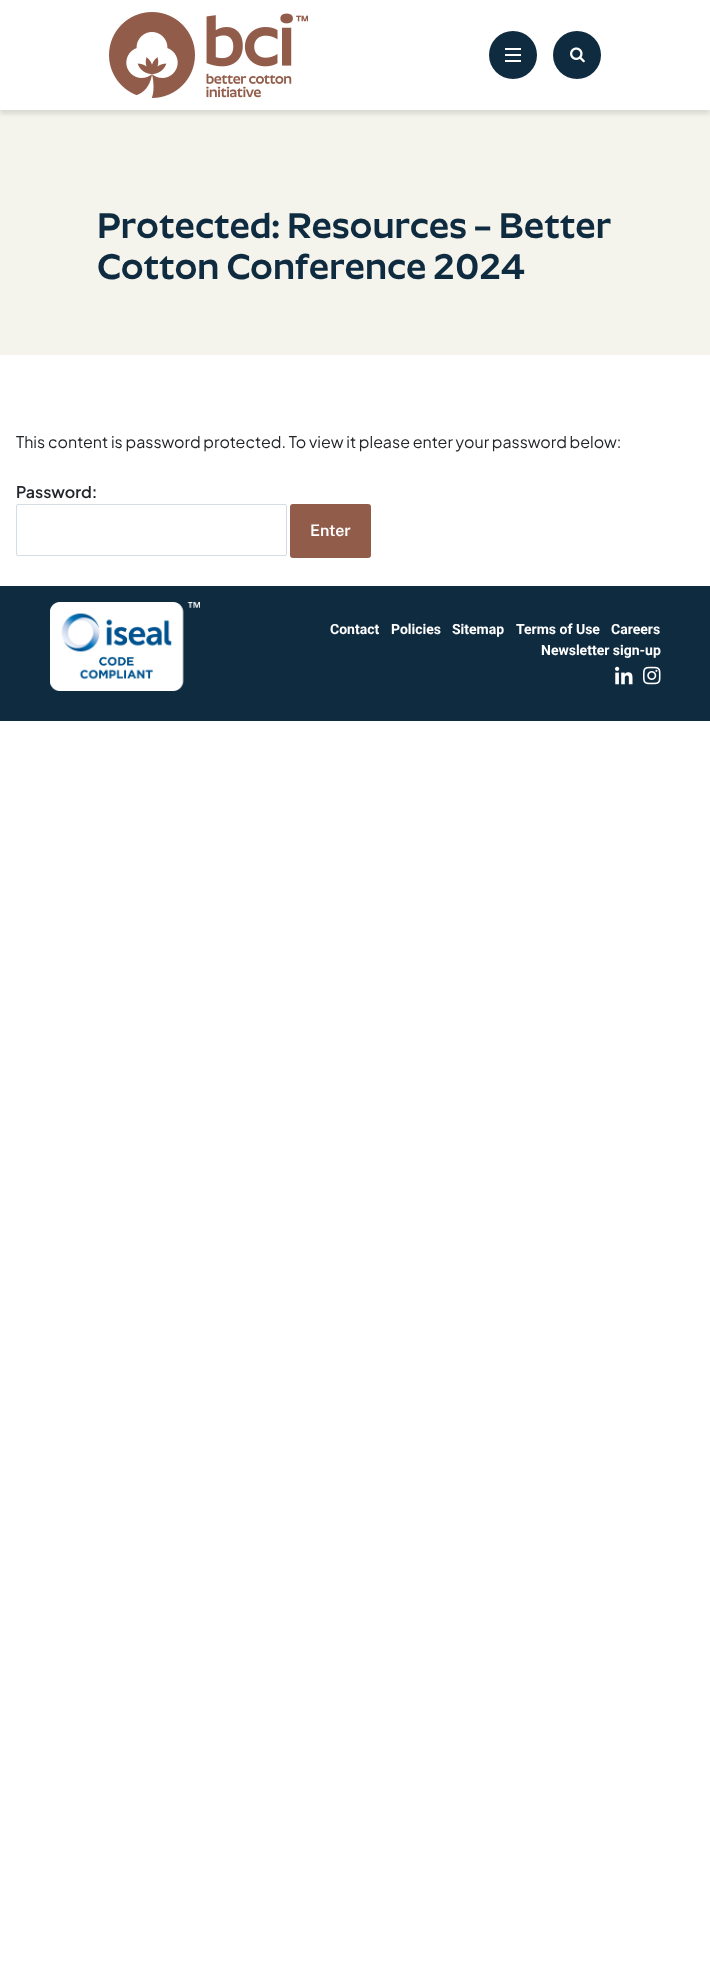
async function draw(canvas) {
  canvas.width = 710
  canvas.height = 1969
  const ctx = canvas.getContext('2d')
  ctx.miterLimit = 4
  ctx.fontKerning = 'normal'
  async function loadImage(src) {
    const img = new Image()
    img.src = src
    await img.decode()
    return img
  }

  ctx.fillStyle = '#fff'
  ctx.fillRect(0, 0, 710, 1969)
  ctx.fillStyle = '#f4f3ec'
  ctx.fillRect(0, 110, 710, 245)
  ctx.fillStyle = '#0000001a'
  ctx.filter = 'blur(2px)'
  ctx.beginPath()
  ctx.rect(0, 4, 710, 110)
  ctx.fill()
  ctx.filter = 'none'
  ctx.fillStyle = '#fff'
  ctx.fillRect(0, 1, 710, 109)
  ctx.drawImage(await loadImage('image0.png'), 109, 12, 199, 86)
  ctx.fillStyle = '#0f2b40'
  ctx.beginPath()
  ctx.arc(513, 55, 24, 0, 2 * Math.PI)
  ctx.fill()
  ctx.fillStyle = '#fff'
  ctx.fillRect(505, 54, 16, 2)
  ctx.fillRect(505, 48, 16, 2)
  ctx.fillRect(505, 60, 16, 2)
  ctx.fillStyle = '#0f2b40'
  ctx.beginPath()
  ctx.arc(577, 55, 24, 0, 2 * Math.PI)
  ctx.fill()
  ctx.drawImage(await loadImage('image1.png'), 570, 47, 15, 16)
  ctx.font = '600 36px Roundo'
  ctx.fillText('Protected: Resources – Better', 97, 238)
  ctx.fillText('Cotton Conference 2024', 97, 279)
  ctx.font = '16px Plus Jakarta Sans'
  ctx.fillStyle = '#212529'
  ctx.fillText('This content is password protected. To view it please enter your password below:', 16, 448)
  ctx.font = '600 16px Plus Jakarta Sans'
  ctx.fillText('Password:', 16, 498)
  ctx.beginPath()
  ctx.roundRect(16.5, 504.5, 270, 51, 1.5)
  ctx.strokeStyle = '#d4dde5'
  ctx.stroke()
  ctx.fillStyle = '#925c4a'
  ctx.beginPath()
  ctx.roundRect(290, 504, 81, 54, 3)
  ctx.fill()
  ctx.font = '600 16px Public Sans'
  ctx.fillStyle = '#fff'
  ctx.fillText('Enter', 310, 536)
  ctx.fillStyle = '#0f2b40'
  ctx.fillRect(0, 586, 710, 135)
  ctx.drawImage(await loadImage('image2.png'), 50, 602, 150, 89)
  ctx.font = 'bold 14px Roboto'
  ctx.fillStyle = '#fff'
  ctx.fillText('Contact', 330, 634)
  ctx.fillText('Policies', 391, 634)
  ctx.fillText('Sitemap', 452, 634)
  ctx.fillText('Terms of Use', 516, 634)
  ctx.fillText('Careers', 611, 634)
  ctx.fillText('Newsletter sign-up', 541, 655)
  ctx.drawImage(await loadImage('image3.png'), 615, 666, 18, 19)
  ctx.drawImage(await loadImage('image4.png'), 643, 666, 18, 19)
}

draw(document.querySelector('canvas'))
